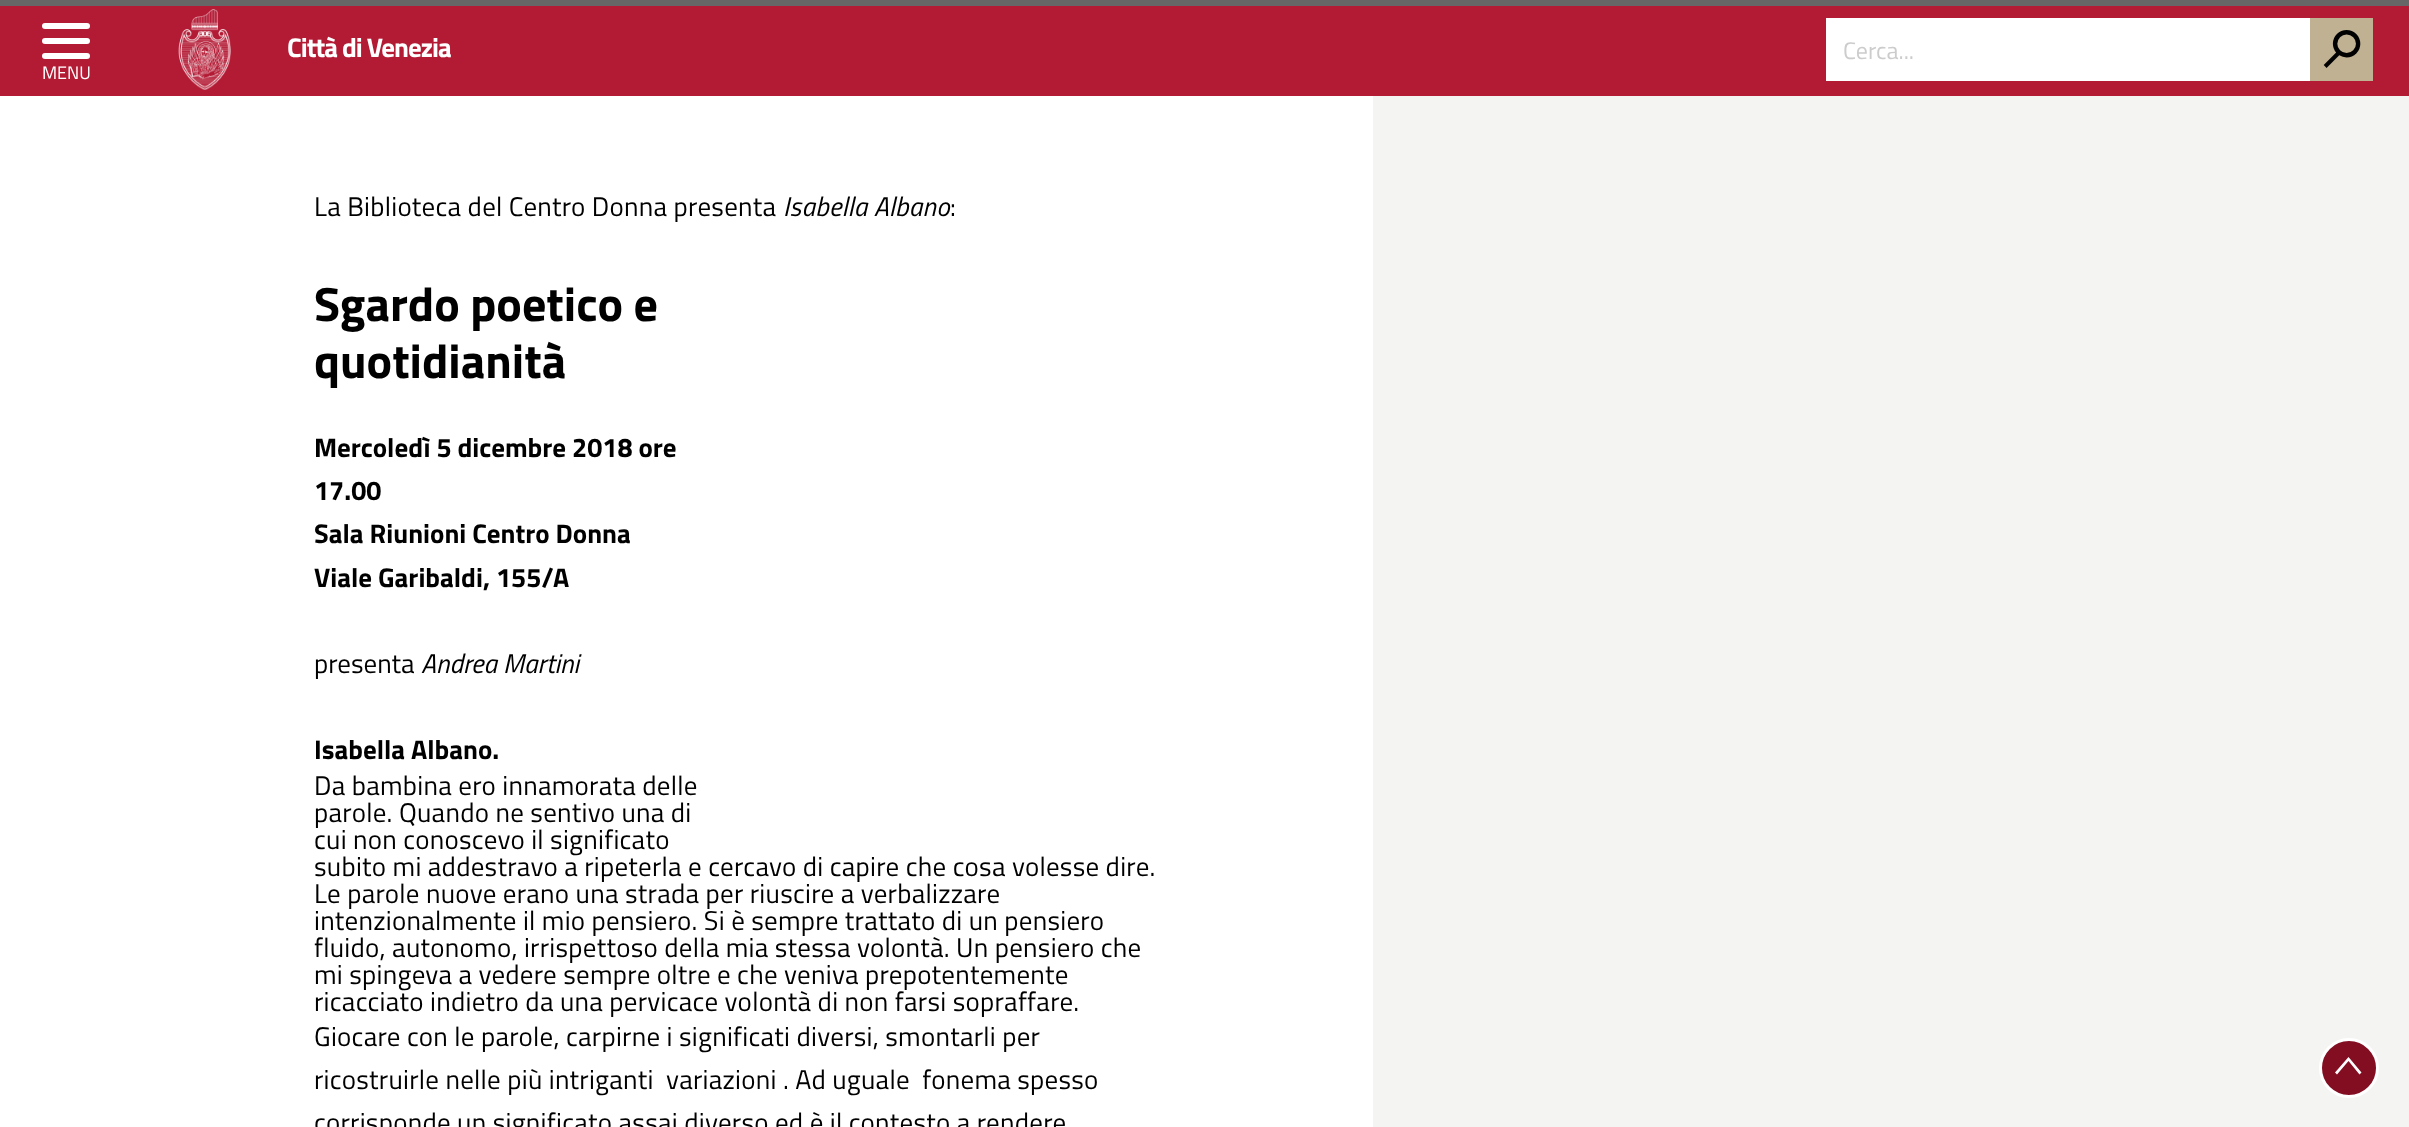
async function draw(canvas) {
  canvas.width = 2409
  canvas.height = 1127
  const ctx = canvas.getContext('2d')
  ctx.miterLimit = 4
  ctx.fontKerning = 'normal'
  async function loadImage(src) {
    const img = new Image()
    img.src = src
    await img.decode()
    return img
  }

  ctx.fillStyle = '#fff'
  ctx.fillRect(0, 0, 2409, 1127)
  ctx.fillStyle = '#b31a34'
  ctx.fillRect(0, 6, 2409, 90)
  ctx.fillStyle = '#666'
  ctx.fillRect(0, 0, 2409, 6)
  ctx.drawImage(await loadImage('image0.png'), 178, 9, 53, 81)
  ctx.letterSpacing = '-1px'
  ctx.font = 'bold 27px Titillium Web'
  ctx.fillStyle = '#fff'
  ctx.fillText('Città di Venezia', 287, 57)
  ctx.fillRect(1826, 18, 484, 63)
  ctx.letterSpacing = '0px'
  ctx.font = '24px Titillium Web'
  ctx.fillStyle = '#ccc'
  ctx.fillText('Cerca...', 1843, 59)
  ctx.fillStyle = '#c0b193'
  ctx.fillRect(2310, 18, 63, 63)
  ctx.font = '38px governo'
  ctx.fillStyle = '#000'
  ctx.fillText('h', 2323, 68)
  ctx.fillStyle = '#fff'
  ctx.beginPath()
  ctx.roundRect(42, 23, 48, 6, 3)
  ctx.fill()
  ctx.beginPath()
  ctx.roundRect(42, 38, 48, 6, 3)
  ctx.fill()
  ctx.beginPath()
  ctx.roundRect(42, 53, 48, 6, 3)
  ctx.fill()
  ctx.font = '18px Titillium Web'
  ctx.fillText('MENU', 42, 79)
  ctx.fillStyle = '#f4f4f2'
  ctx.fillRect(1373, 96, 1036, 1031)
  ctx.letterSpacing = '0.27px'
  ctx.font = '27px Titillium Web'
  ctx.fillStyle = '#000'
  ctx.fillText('La Biblioteca del Centro Donna presenta', 314, 216)
  ctx.font = 'italic 27px Titillium Web'
  ctx.fillText('Isabella Albano', 783, 216)
  ctx.font = '27px Titillium Web'
  ctx.fillText(':', 950, 216)
  ctx.letterSpacing = '0px'
  ctx.font = 'bold 48px Titillium Web'
  ctx.fillText('Sgardo poetico e', 314, 321)
  ctx.fillText('quotidianità', 314, 378)
  ctx.font = 'bold 27px Titillium Web'
  ctx.fillText('Mercoledì 5 dicembre 2018 ore', 314, 457)
  ctx.fillText('17.00', 314, 500)
  ctx.fillText('Sala Riunioni Centro Donna', 314, 543)
  ctx.fillText('Viale Garibaldi, 155/A', 314, 587)
  ctx.font = '27px Titillium Web'
  ctx.fillText('presenta', 314, 673)
  ctx.font = 'italic 27px Titillium Web'
  ctx.fillText('Andrea Martini', 421, 673)
  ctx.font = 'bold 27px Titillium Web'
  ctx.fillText('Isabella Albano.', 314, 759)
  ctx.letterSpacing = '0.27px'
  ctx.font = '27px Titillium Web'
  ctx.fillText('Da bambina ero innamorata delle', 314, 795)
  ctx.fillText('parole. Quando ne sentivo una di', 314, 822)
  ctx.fillText('cui non conoscevo il significato', 314, 849)
  ctx.fillText('subito mi addestravo a ripeterla e cercavo di capire che cosa volesse dire.', 314, 876)
  ctx.fillText('Le parole nuove erano una strada per riuscire a verbalizzare', 314, 903)
  ctx.fillText('intenzionalmente il mio pensiero. Si è sempre trattato di un pensiero', 314, 930)
  ctx.fillText('fluido, autonomo, irrispettoso della mia stessa volontà. Un pensiero che', 314, 957)
  ctx.fillText('mi spingeva a vedere sempre oltre e che veniva prepotentemente', 314, 984)
  ctx.fillText('ricacciato indietro da una pervicace volontà di non farsi sopraffare.', 314, 1011)
  ctx.fillText('Giocare con le parole, carpirne i significati diversi, smontarli per', 314, 1046)
  ctx.fillText('ricostruirle nelle più intriganti  variazioni . Ad uguale  fonema spesso', 314, 1089)
  ctx.fillText('corrisponde un significato assai diverso ed è il contesto a rendere', 314, 1132)
  ctx.fillStyle = '#830e22'
  ctx.beginPath()
  ctx.arc(2349, 1068, 28.5, 0, 2 * Math.PI)
  ctx.fill()
  ctx.strokeStyle = '#fff'
  ctx.lineWidth = 3
  ctx.stroke()
  ctx.fillStyle = '#fff'
  ctx.beginPath()
  ctx.moveTo(2361.5, 1072.5)
  ctx.lineTo(2359.5, 1074.5)
  ctx.lineTo(2348.5, 1061)
  ctx.lineTo(2337, 1074.5)
  ctx.lineTo(2335, 1072.5)
  ctx.lineTo(2348.5, 1057)
  ctx.closePath()
  ctx.fill()
}

draw(document.querySelector('canvas'))
